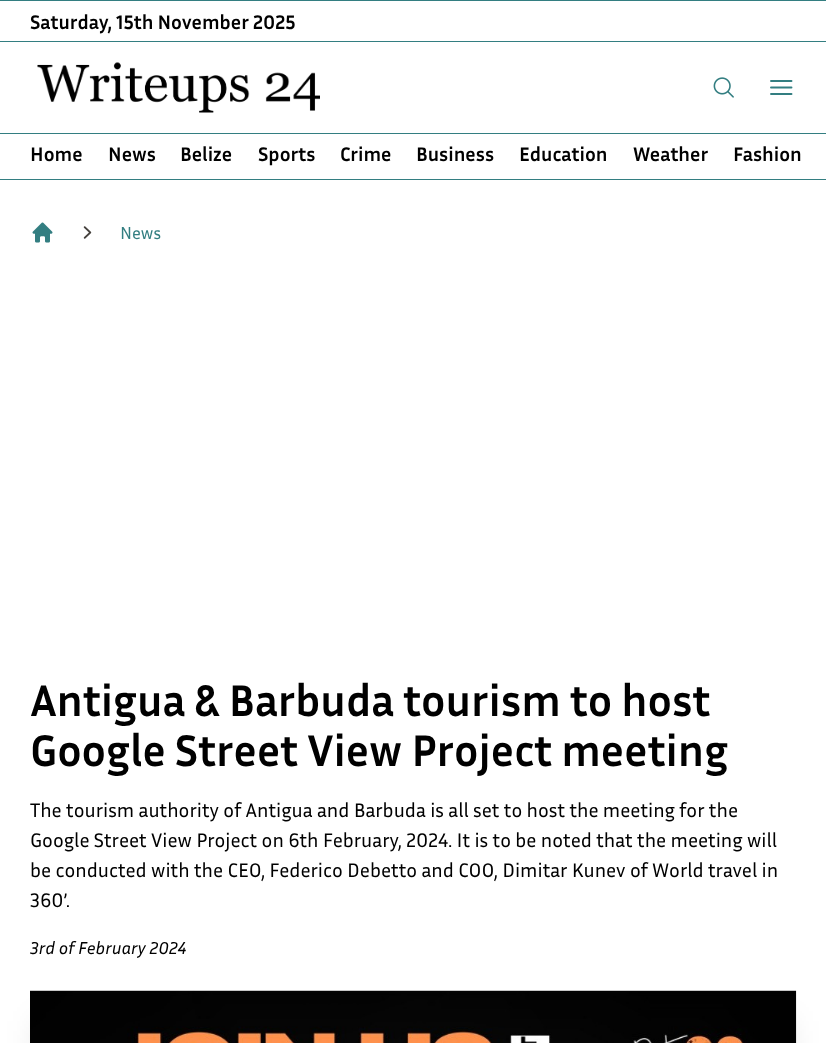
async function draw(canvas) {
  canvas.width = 826
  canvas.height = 1043
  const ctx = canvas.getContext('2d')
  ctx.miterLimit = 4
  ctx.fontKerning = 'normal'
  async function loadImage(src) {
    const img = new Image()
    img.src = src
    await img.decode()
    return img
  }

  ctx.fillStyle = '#fff'
  ctx.fillRect(0, 0, 826, 1043)
  ctx.fillStyle = '#337e81'
  ctx.fillRect(0, 0, 826, 1)
  ctx.fillRect(0, 41, 826, 1)
  ctx.font = 'bold 20px Inria Sans'
  ctx.fillStyle = '#000'
  ctx.fillText('Saturday, 15th November 2025', 30, 29)
  ctx.drawImage(await loadImage('image0.png'), 37, 62, 283, 51)
  ctx.drawImage(await loadImage('image1.png'), 713, 77, 21, 21)
  ctx.beginPath()
  ctx.moveTo(771, 81)
  ctx.lineTo(791.5, 81)
  ctx.moveTo(771, 87.5)
  ctx.lineTo(791.5, 87.5)
  ctx.moveTo(771, 94)
  ctx.lineTo(791.5, 94)
  ctx.strokeStyle = '#337e81'
  ctx.lineWidth = 1.9
  ctx.lineCap = 'round'
  ctx.lineJoin = 'round'
  ctx.stroke()
  ctx.fillStyle = '#337e81'
  ctx.fillRect(0, 133, 826, 1)
  ctx.fillRect(0, 179, 826, 1)
  ctx.fillStyle = '#000'
  ctx.fillText('Home', 30, 161)
  ctx.fillText('News', 108, 161)
  ctx.fillText('Belize', 180, 161)
  ctx.fillText('Sports', 258, 161)
  ctx.fillText('Crime', 340, 161)
  ctx.fillText('Business', 416, 161)
  ctx.fillText('Education', 519, 161)
  ctx.fillText('Weather', 633, 161)
  ctx.fillText('Fashion', 733, 161)
  ctx.drawImage(await loadImage('image2.png'), 32, 222, 21, 21)
  ctx.drawImage(await loadImage('image3.png'), 83, 226, 9, 13)
  ctx.font = '17.5px Inria Sans'
  ctx.fillStyle = '#337e81'
  ctx.fillText('News', 120, 239)
  ctx.font = 'bold 45px Inria Sans'
  ctx.fillStyle = '#000'
  ctx.fillText('Antigua & Barbuda tourism to host', 30, 716)
  ctx.fillText('Google Street View Project meeting', 30, 766)
  ctx.font = '20px Inria Sans'
  ctx.fillText('The tourism authority of Antigua and Barbuda is all set to host the meeting for the', 30, 817)
  ctx.fillText('Google Street View Project on 6th February, 2024. It is to be noted that the meeting will', 30, 847)
  ctx.fillText('be conducted with the CEO, Federico Debetto and COO, Dimitar Kunev of World travel in', 30, 877)
  ctx.fillText('360’.', 30, 907)
  ctx.font = 'italic 17.5px Inria Sans'
  ctx.fillText('3rd of February 2024', 30, 954)
  ctx.fillStyle = '#0000001a'
  ctx.filter = 'blur(15.5px)'
  ctx.beginPath()
  ctx.rect(36, 1021, 754, 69)
  ctx.fill()
  ctx.filter = 'none'
  ctx.drawImage(await loadImage('image4.png'), 30, 990, 767, 53)
}

draw(document.querySelector('canvas'))
